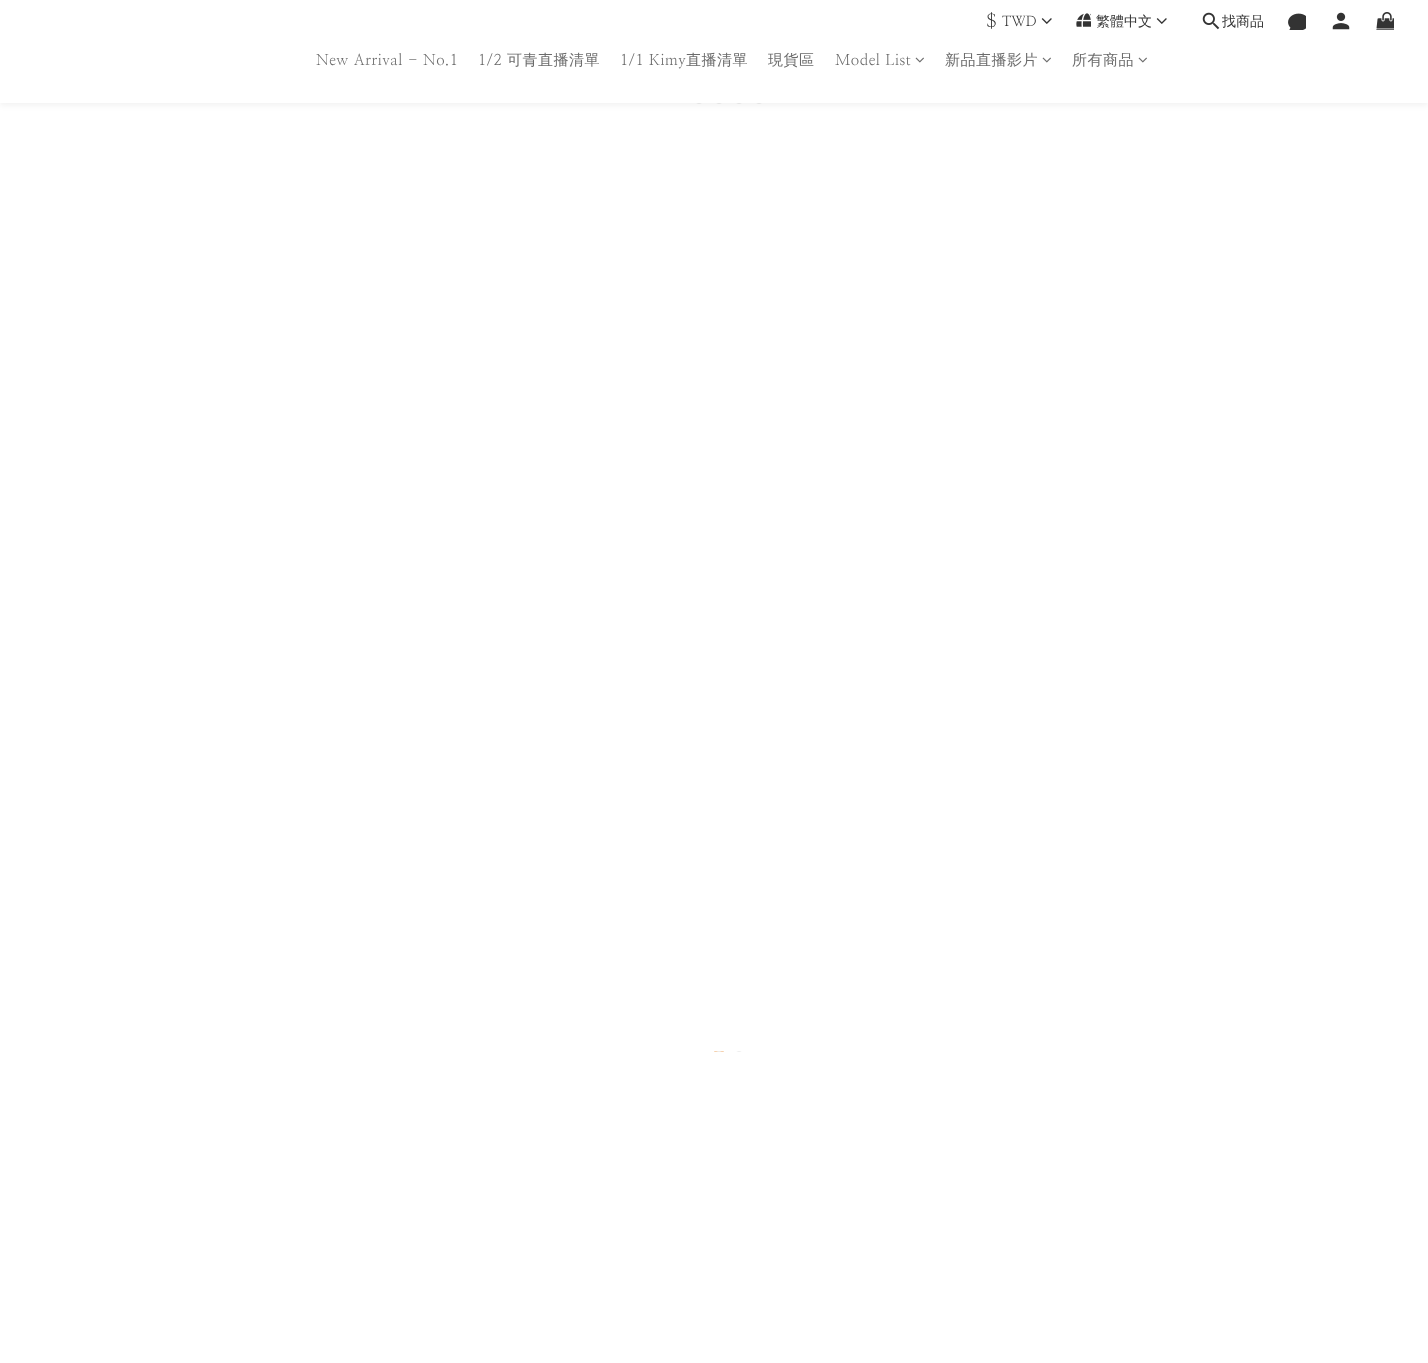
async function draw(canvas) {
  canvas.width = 1428
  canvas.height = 1363
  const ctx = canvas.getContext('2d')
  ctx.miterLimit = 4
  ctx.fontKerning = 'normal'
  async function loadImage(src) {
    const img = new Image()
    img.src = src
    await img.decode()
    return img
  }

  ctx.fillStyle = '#fff'
  ctx.fillRect(0, 0, 1428, 1363)
  ctx.beginPath()
  ctx.arc(699, 99, 4.5, 0, 2 * Math.PI)
  ctx.strokeStyle = '#eee'
  ctx.stroke()
  ctx.beginPath()
  ctx.arc(719, 99, 4.5, 0, 2 * Math.PI)
  ctx.stroke()
  ctx.beginPath()
  ctx.arc(739, 99, 4.5, 0, 2 * Math.PI)
  ctx.stroke()
  ctx.beginPath()
  ctx.arc(759, 99, 4.5, 0, 2 * Math.PI)
  ctx.stroke()
  ctx.fillStyle = '#0000000f'
  ctx.filter = 'blur(3px)'
  ctx.beginPath()
  ctx.rect(0, 2, 1428, 103)
  ctx.fill()
  ctx.filter = 'none'
  ctx.fillStyle = '#fff'
  ctx.fillRect(0, 0, 1428, 103)
  ctx.letterSpacing = '1px'
  ctx.font = '18px NanumMyeongjo'
  ctx.fillStyle = '#333'
  ctx.fillText('$', 986, 27)
  ctx.letterSpacing = '0px'
  ctx.font = '14px NanumMyeongjo'
  ctx.fillText('TWD', 1002, 26)
  ctx.drawImage(await loadImage('image0.png'), 1041, 18, 11, 6)
  ctx.drawImage(await loadImage('image1.png'), 1076, 13, 15, 14)
  ctx.font = '500 14px WenQuanYi Zen Hei'
  ctx.fillText('繁體中文', 1096, 26)
  ctx.drawImage(await loadImage('image0.png'), 1156, 18, 11, 6)
  ctx.drawImage(await loadImage('image2.png'), 1202, 12, 18, 18)
  ctx.fillText('找商品', 1222, 26)
  ctx.drawImage(await loadImage('image3.png'), 1288, 13, 18, 17)
  ctx.drawImage(await loadImage('image4.png'), 1332, 12, 18, 18)
  ctx.drawImage(await loadImage('image5.png'), 1376, 12, 18, 18)
  ctx.letterSpacing = '0.5px'
  ctx.font = '15px NanumMyeongjo'
  ctx.fillStyle = '#6b6b6b'
  ctx.fillText('New Arrival - No.1', 316, 65)
  ctx.fillText('1/2', 478, 65)
  ctx.font = '500 15px WenQuanYi Zen Hei'
  ctx.fillText('可青直播清單', 507, 65)
  ctx.font = '15px NanumMyeongjo'
  ctx.fillText('1/1 Kimy', 620, 65)
  ctx.font = '500 15px WenQuanYi Zen Hei'
  ctx.fillText('直播清單', 686, 65)
  ctx.fillText('現貨區', 768, 65)
  ctx.font = '15px NanumMyeongjo'
  ctx.fillText('Model List', 835, 65)
  ctx.drawImage(await loadImage('image6.png'), 915, 57, 9, 6)
  ctx.font = '500 15px WenQuanYi Zen Hei'
  ctx.fillText('新品直播影片', 945, 65)
  ctx.drawImage(await loadImage('image6.png'), 1042, 57, 9, 6)
  ctx.fillText('所有商品', 1072, 65)
  ctx.drawImage(await loadImage('image6.png'), 1138, 57, 9, 6)
  ctx.fillStyle = '#f6d1ad'
  ctx.beginPath()
  ctx.roundRect(714, 1051, 10, 1, [0, 0, 5, 5])
  ctx.fill()
  ctx.save()
  ctx.beginPath()
  ctx.rect(129, 1051, 1170, 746)
  ctx.clip()
  ctx.beginPath()
  ctx.arc(719, 1047, 4.5, 0, 2 * Math.PI)
  ctx.stroke()
  ctx.beginPath()
  ctx.arc(739, 1047, 4.5, 0, 2 * Math.PI)
  ctx.stroke()
  ctx.restore()
}

draw(document.querySelector('canvas'))
